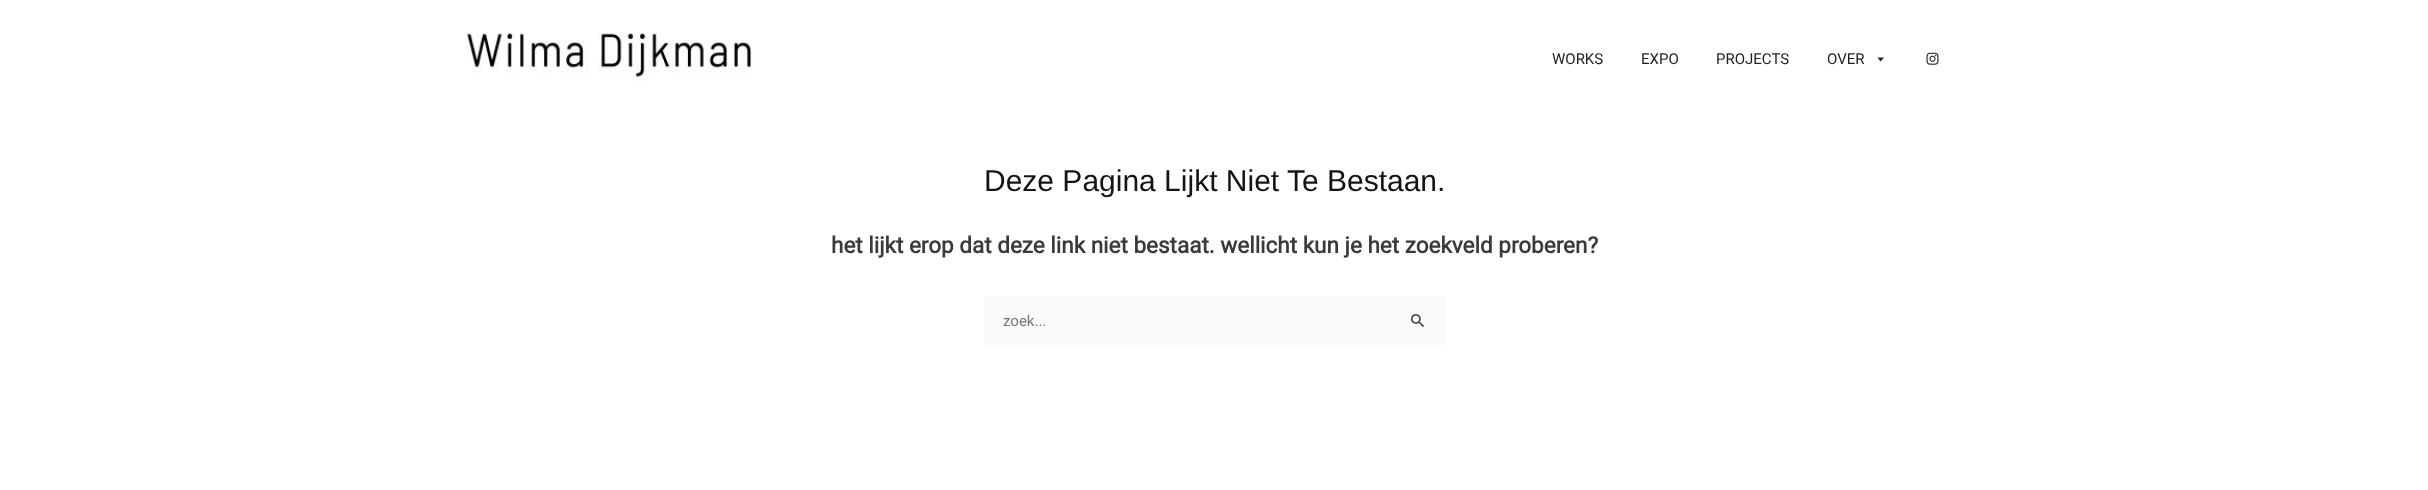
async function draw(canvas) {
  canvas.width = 2428
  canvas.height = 490
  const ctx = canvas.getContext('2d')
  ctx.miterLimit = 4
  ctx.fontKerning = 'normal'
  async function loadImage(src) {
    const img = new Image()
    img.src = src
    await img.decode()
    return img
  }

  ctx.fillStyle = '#fff'
  ctx.fillRect(0, 0, 2428, 490)
  ctx.drawImage(await loadImage('image0.png'), 465, 32, 288, 50)
  ctx.font = '15px Roboto'
  ctx.fillStyle = '#222'
  ctx.fillText('WORKS', 1552, 64)
  ctx.fillText('EXPO', 1641, 64)
  ctx.fillText('PROJECTS', 1716, 64)
  ctx.fillText('OVER', 1827, 64)
  ctx.beginPath()
  ctx.moveTo(1884, 57.5)
  ctx.lineTo(1880.5, 61.5)
  ctx.lineTo(1877.5, 57.5)
  ctx.closePath()
  ctx.fill()
  ctx.drawImage(await loadImage('image1.png'), 1926, 52, 13, 13)
  ctx.font = '30px Liberation Sans'
  ctx.fillStyle = '#141414'
  ctx.fillText('Deze Pagina Lijkt Niet Te Bestaan.', 984, 191)
  ctx.font = 'bold 22.5px Roboto'
  ctx.fillStyle = '#3a3a3a'
  ctx.fillText('het lijkt erop dat deze link niet bestaat. wellicht kun je het zoekveld proberen?', 831, 253)
  ctx.fillStyle = '#fafafa'
  ctx.beginPath()
  ctx.roundRect(984, 296, 462, 50, 2.5)
  ctx.fill()
  ctx.font = '15px Roboto'
  ctx.fillStyle = '#757575'
  ctx.fillText('zoek...', 1003, 326)
  ctx.drawImage(await loadImage('image2.png'), 1411, 314, 13, 13)
}

draw(document.querySelector('canvas'))
